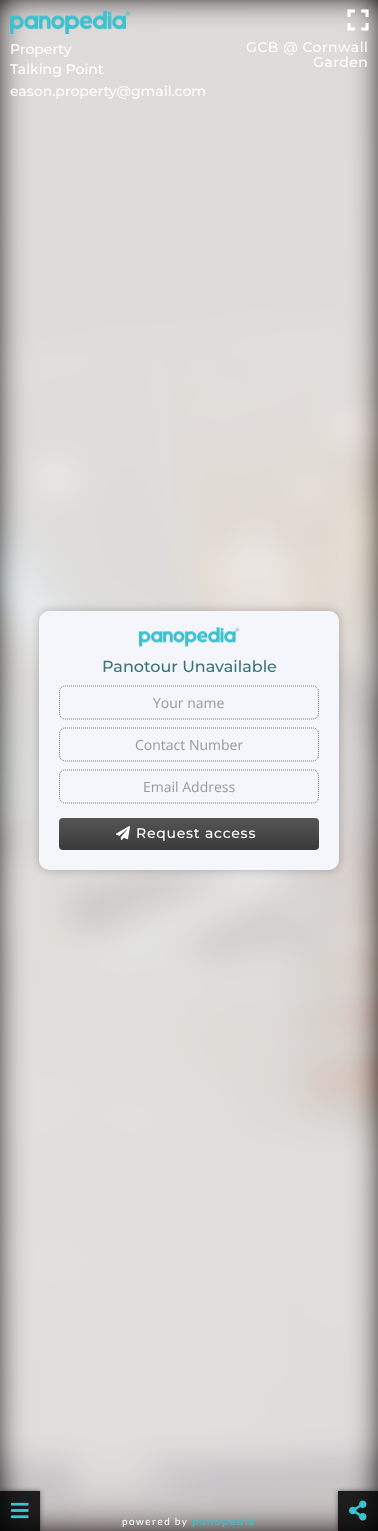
async function draw(canvas) {
  canvas.width = 378
  canvas.height = 1531
  const ctx = canvas.getContext('2d')
  ctx.miterLimit = 4
  ctx.fontKerning = 'normal'
  async function loadImage(src) {
    const img = new Image()
    img.src = src
    await img.decode()
    return img
  }
  let gradient

  ctx.fillStyle = '#000'
  ctx.fillRect(0, 0, 378, 1531)
  ctx.drawImage(await loadImage('image0.png'), 0, 0, 378, 1531)
  ctx.fillStyle = '#ffffffbf'
  ctx.filter = 'blur(15px)'
  ctx.beginPath()
  ctx.rect(0, 0, 378, 1531)
  ctx.fill()
  ctx.filter = 'none'
  ctx.drawImage(await loadImage('image1.png'), 347, 9, 22, 22)
  ctx.drawImage(await loadImage('image2.png'), 10, 10, 120, 24)
  ctx.font = '500 14px Montserrat'
  ctx.fillStyle = '#fff'
  ctx.fillText('Property', 10, 54)
  ctx.fillText('Talking Point', 10, 74)
  ctx.fillText('eason.property@gmail.com', 10, 96)
  ctx.letterSpacing = '0.5px'
  ctx.fillText('GCB @ Cornwall', 246, 52)
  ctx.fillText('Garden', 313, 67)
  ctx.fillStyle = '#00000040'
  ctx.filter = 'blur(5px)'
  ctx.beginPath()
  ctx.roundRect(39, 611, 300, 259, 10)
  ctx.fill()
  ctx.filter = 'none'
  ctx.fillStyle = '#f5f6fb'
  ctx.beginPath()
  ctx.roundRect(39, 611, 300, 259, 10)
  ctx.fill()
  ctx.drawImage(await loadImage('image3.png'), 139, 627, 100, 20)
  ctx.letterSpacing = '0px'
  ctx.font = '500 16px Montserrat'
  ctx.fillStyle = '#377379'
  ctx.fillText('Panotour Unavailable', 102, 672)
  ctx.beginPath()
  ctx.moveTo(65, 686)
  ctx.lineTo(313, 686)
  ctx.bezierCurveTo(316, 686, 318.5, 688.5, 318.5, 691.5)
  ctx.lineTo(318.5, 713.5)
  ctx.bezierCurveTo(318.5, 716.5, 316, 719, 313, 719)
  ctx.lineTo(65, 719)
  ctx.bezierCurveTo(62, 719, 59.5, 716.5, 59.5, 713.5)
  ctx.lineTo(59.5, 691.5)
  ctx.bezierCurveTo(59.5, 688.5, 62, 686, 65, 686)
  ctx.closePath()
  ctx.strokeStyle = '#787878'
  ctx.setLineDash([1, 1])
  ctx.stroke()
  ctx.font = '14px Open Sans'
  ctx.fillStyle = '#999'
  ctx.fillText('Your name', 153, 708)
  ctx.beginPath()
  ctx.moveTo(65, 728)
  ctx.lineTo(313, 728)
  ctx.bezierCurveTo(316, 728, 318.5, 730.5, 318.5, 733.5)
  ctx.lineTo(318.5, 755.5)
  ctx.bezierCurveTo(318.5, 758.5, 316, 761, 313, 761)
  ctx.lineTo(65, 761)
  ctx.bezierCurveTo(62, 761, 59.5, 758.5, 59.5, 755.5)
  ctx.lineTo(59.5, 733.5)
  ctx.bezierCurveTo(59.5, 730.5, 62, 728, 65, 728)
  ctx.closePath()
  ctx.stroke()
  ctx.fillText('Contact Number', 135, 750)
  ctx.beginPath()
  ctx.moveTo(65, 770)
  ctx.lineTo(313, 770)
  ctx.bezierCurveTo(316, 770, 318.5, 772.5, 318.5, 775.5)
  ctx.lineTo(318.5, 797.5)
  ctx.bezierCurveTo(318.5, 800.5, 316, 803, 313, 803)
  ctx.lineTo(65, 803)
  ctx.bezierCurveTo(62, 803, 59.5, 800.5, 59.5, 797.5)
  ctx.lineTo(59.5, 775.5)
  ctx.bezierCurveTo(59.5, 772.5, 62, 770, 65, 770)
  ctx.closePath()
  ctx.stroke()
  ctx.fillText('Email Address', 143, 792)
  gradient = ctx.createLinearGradient(189, 850, 189, 818)
  gradient.addColorStop(0, '#3a3a3a')
  gradient.addColorStop(1, '#555')
  ctx.fillStyle = gradient
  ctx.beginPath()
  ctx.roundRect(59, 818, 260, 32, 4)
  ctx.fill()
  ctx.drawImage(await loadImage('image4.png'), 116, 826, 14, 14)
  ctx.letterSpacing = '0.75px'
  ctx.font = '500 14px Montserrat'
  ctx.fillStyle = '#fff'
  ctx.fillText('Request access', 136, 838)
  ctx.save()
  ctx.beginPath()
  ctx.moveTo(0, 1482)
  ctx.lineTo(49, 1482)
  ctx.lineTo(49, 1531)
  ctx.lineTo(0, 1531)
  ctx.closePath()
  ctx.moveTo(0, 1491)
  ctx.lineTo(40, 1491)
  ctx.lineTo(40, 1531)
  ctx.lineTo(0, 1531)
  ctx.closePath()
  ctx.clip('evenodd')
  ctx.fillStyle = '#00000080'
  ctx.filter = 'blur(2.5px)'
  ctx.beginPath()
  ctx.rect(0, 1491, 40, 40)
  ctx.fill()
  ctx.filter = 'none'
  ctx.restore()
  ctx.fillStyle = '#000000d9'
  ctx.fillRect(0, 1491, 40, 40)
  ctx.drawImage(await loadImage('image5.png'), 11, 1502, 18, 17)
  ctx.letterSpacing = '1.5px'
  ctx.font = '10px Lato'
  ctx.fillStyle = '#fff'
  ctx.fillText('powered by', 122, 1525)
  ctx.letterSpacing = '1px'
  ctx.font = '500 10px Montserrat'
  ctx.fillStyle = '#3dc1ce'
  ctx.fillText('panopedia', 192, 1525)
  ctx.save()
  ctx.beginPath()
  ctx.moveTo(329, 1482)
  ctx.lineTo(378, 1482)
  ctx.lineTo(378, 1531)
  ctx.lineTo(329, 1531)
  ctx.closePath()
  ctx.moveTo(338, 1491)
  ctx.lineTo(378, 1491)
  ctx.lineTo(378, 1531)
  ctx.lineTo(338, 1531)
  ctx.closePath()
  ctx.clip('evenodd')
  ctx.fillStyle = '#00000080'
  ctx.filter = 'blur(2.5px)'
  ctx.beginPath()
  ctx.rect(338, 1491, 40, 40)
  ctx.fill()
  ctx.filter = 'none'
  ctx.restore()
  ctx.fillStyle = '#000000d9'
  ctx.fillRect(338, 1491, 40, 40)
  ctx.drawImage(await loadImage('image6.png'), 349, 1500, 18, 21)
}

draw(document.querySelector('canvas'))
